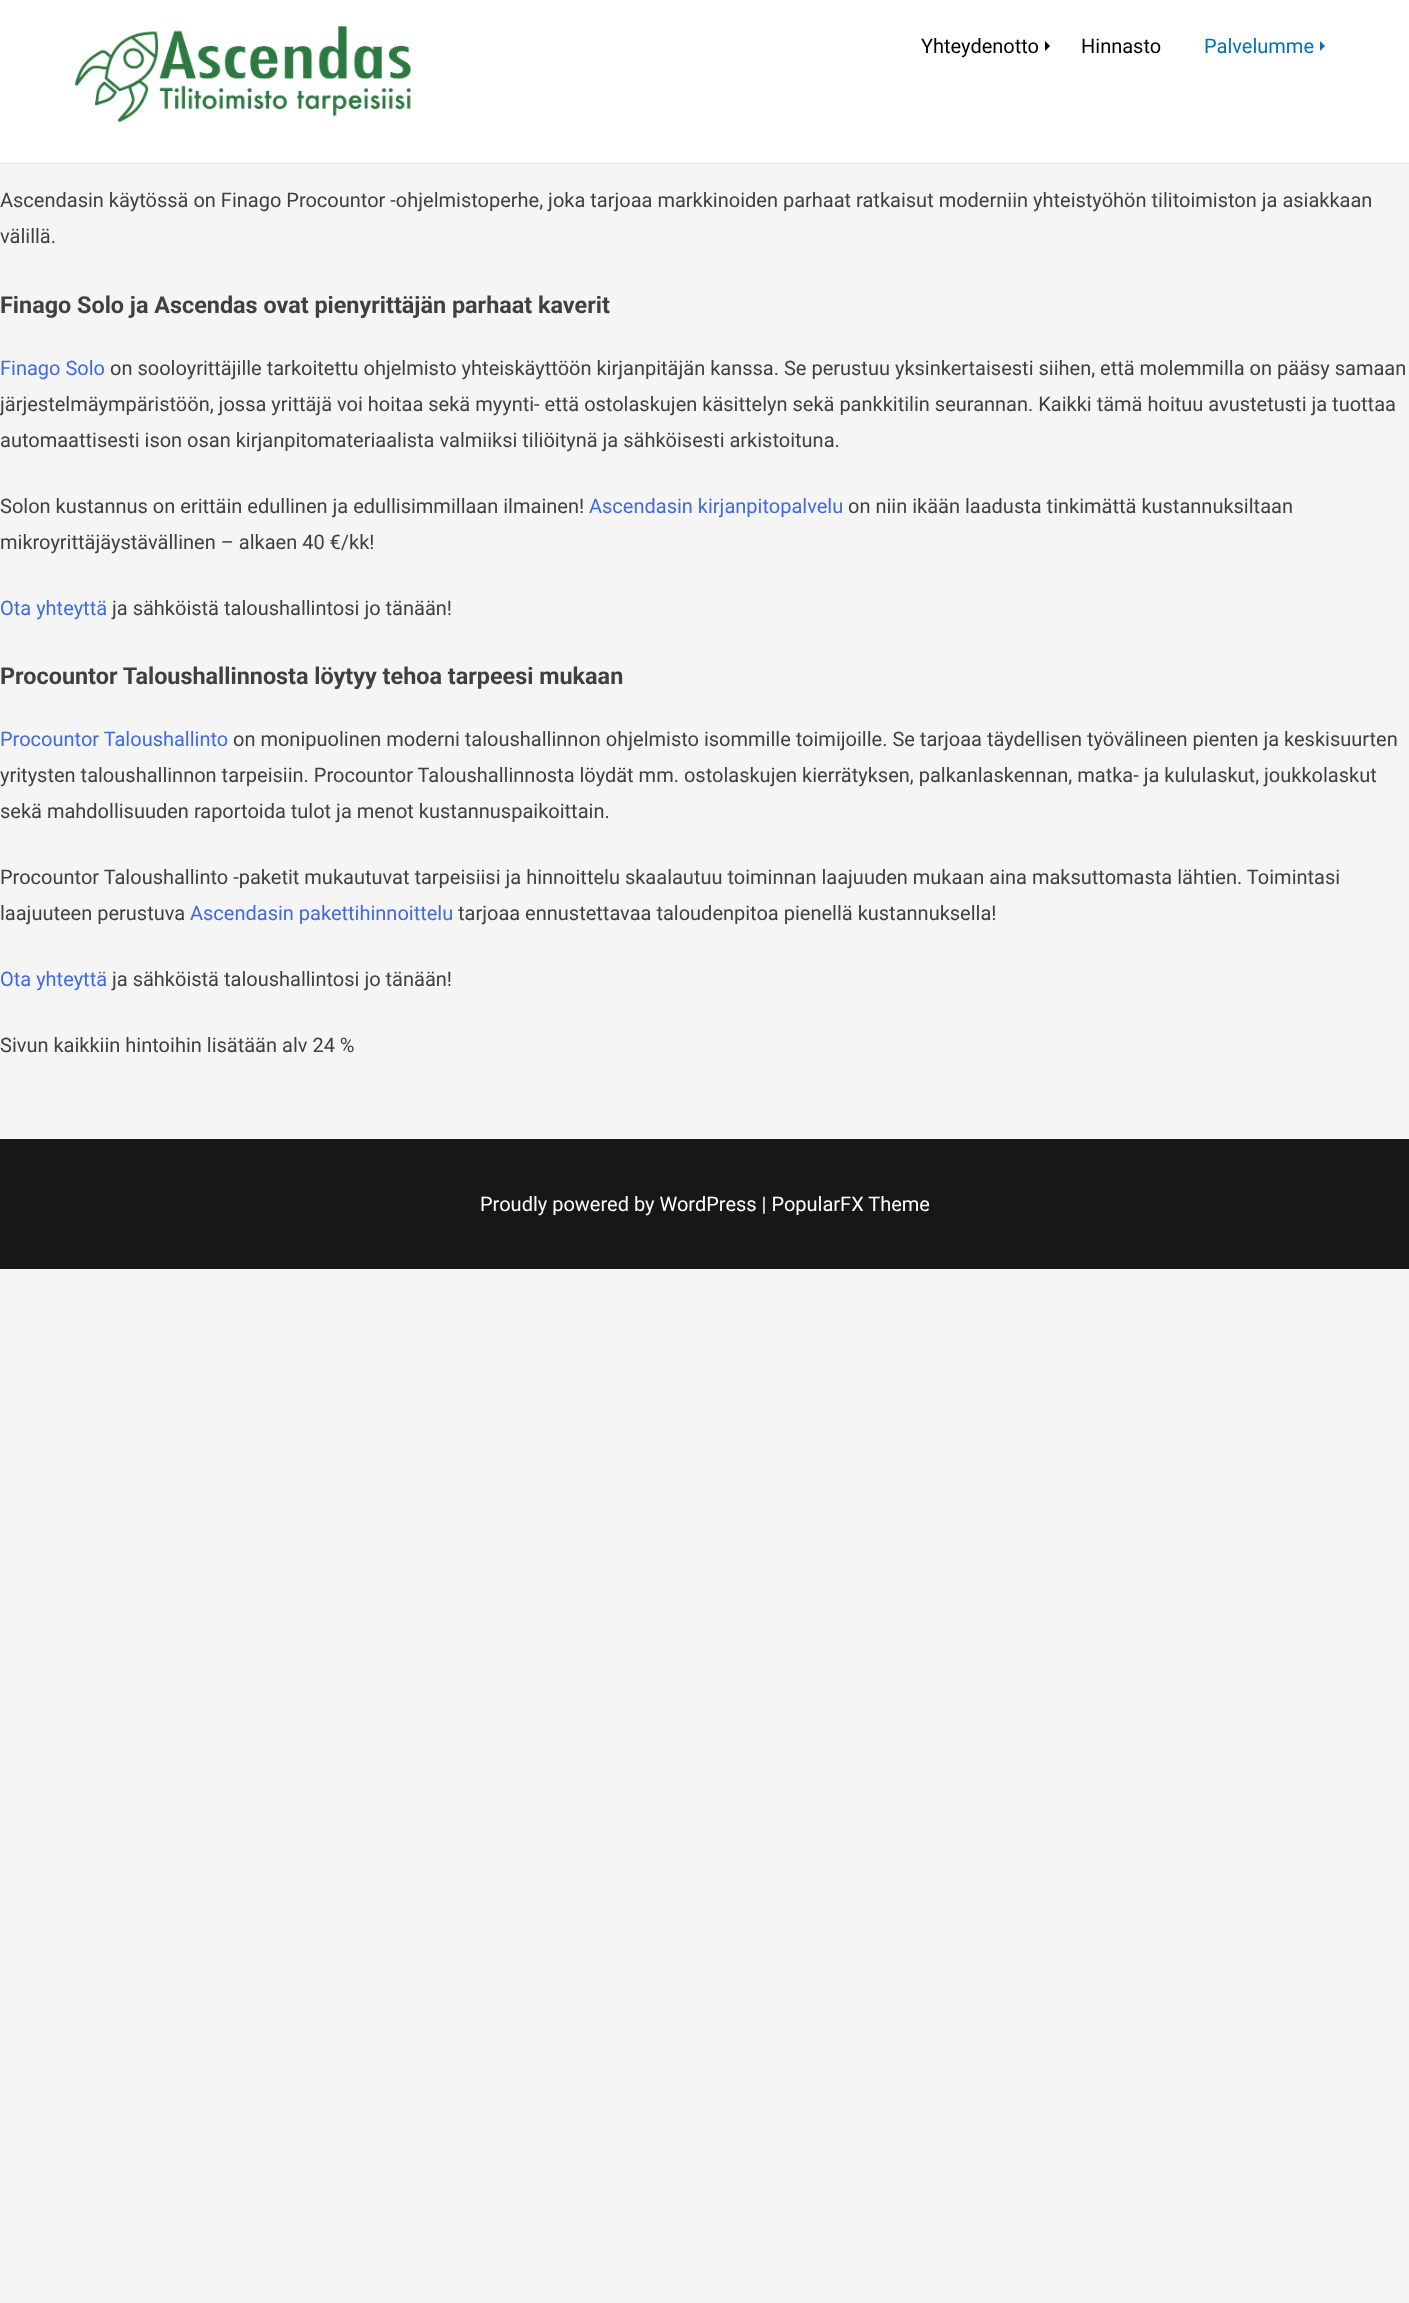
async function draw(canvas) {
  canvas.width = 1409
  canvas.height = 2303
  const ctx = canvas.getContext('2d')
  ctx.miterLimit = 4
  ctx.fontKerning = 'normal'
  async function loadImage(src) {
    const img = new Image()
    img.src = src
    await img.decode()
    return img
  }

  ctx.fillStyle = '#f5f5f5'
  ctx.fillRect(0, 0, 1409, 2303)
  ctx.fillStyle = '#fff'
  ctx.fillRect(0, 0, 1409, 163)
  ctx.fillStyle = '#eaeaea'
  ctx.fillRect(0, 163, 1409, 1)
  ctx.drawImage(await loadImage('image0.png'), 74, 26, 338, 97)
  ctx.font = '20px Roboto'
  ctx.fillStyle = '#000'
  ctx.fillText('Yhteydenotto', 921, 53)
  ctx.beginPath()
  ctx.moveTo(1045, 51)
  ctx.lineTo(1045, 41)
  ctx.lineTo(1050, 46)
  ctx.closePath()
  ctx.fill()
  ctx.fillText('Hinnasto', 1081, 53)
  ctx.fillStyle = '#0072b7'
  ctx.fillText('Palvelumme', 1204, 53)
  ctx.beginPath()
  ctx.moveTo(1320, 51)
  ctx.lineTo(1320, 41)
  ctx.lineTo(1325, 46)
  ctx.closePath()
  ctx.fill()
  ctx.fillStyle = '#404040'
  ctx.fillText('Ascendasin käytössä on Finago Procountor -ohjelmistoperhe, joka tarjoaa markkinoiden parhaat ratkaisut moderniin yhteistyöhön tilitoimiston ja asiakkaan', 0, 207)
  ctx.fillText('välillä.', 0, 243)
  ctx.font = 'bold 23.4px Roboto'
  ctx.fillText('Finago Solo ja Ascendas ovat pienyrittäjän parhaat kaverit', 0, 313)
  ctx.font = '20px Roboto'
  ctx.fillStyle = '#4169e1'
  ctx.fillText('Finago Solo', 0, 375)
  ctx.fillStyle = '#404040'
  ctx.fillText('on sooloyrittäjille tarkoitettu ohjelmisto yhteiskäyttöön kirjanpitäjän kanssa. Se perustuu yksinkertaisesti siihen, että molemmilla on pääsy samaan', 110, 375)
  ctx.fillText('järjestelmäympäristöön, jossa yrittäjä voi hoitaa sekä myynti- että ostolaskujen käsittelyn sekä pankkitilin seurannan. Kaikki tämä hoituu avustetusti ja tuottaa', 0, 411)
  ctx.fillText('automaattisesti ison osan kirjanpitomateriaalista valmiiksi tiliöitynä ja sähköisesti arkistoituna.', 0, 447)
  ctx.fillText('Solon kustannus on erittäin edullinen ja edullisimmillaan ilmainen!', 0, 513)
  ctx.fillStyle = '#4169e1'
  ctx.fillText('Ascendasin kirjanpitopalvelu', 589, 513)
  ctx.fillStyle = '#404040'
  ctx.fillText('on niin ikään laadusta tinkimättä kustannuksiltaan', 848, 513)
  ctx.fillText('mikroyrittäjäystävällinen – alkaen 40 €/kk!', 0, 549)
  ctx.fillStyle = '#4169e1'
  ctx.fillText('Ota yhteyttä', 0, 615)
  ctx.fillStyle = '#404040'
  ctx.fillText('ja sähköistä taloushallintosi jo tänään!', 112, 615)
  ctx.font = 'bold 23.4px Roboto'
  ctx.fillText('Procountor Taloushallinnosta löytyy tehoa tarpeesi mukaan', 0, 684)
  ctx.font = '20px Roboto'
  ctx.fillStyle = '#4169e1'
  ctx.fillText('Procountor Taloushallinto', 0, 746)
  ctx.fillStyle = '#404040'
  ctx.fillText('on monipuolinen moderni taloushallinnon ohjelmisto isommille toimijoille. Se tarjoaa täydellisen työvälineen pienten ja keskisuurten', 233, 746)
  ctx.fillText('yritysten taloushallinnon tarpeisiin. Procountor Taloushallinnosta löydät mm. ostolaskujen kierrätyksen, palkanlaskennan, matka- ja kululaskut, joukkolaskut', 0, 782)
  ctx.fillText('sekä mahdollisuuden raportoida tulot ja menot kustannuspaikoittain.', 0, 818)
  ctx.fillText('Procountor Taloushallinto -paketit mukautuvat tarpeisiisi ja hinnoittelu skaalautuu toiminnan laajuuden mukaan aina maksuttomasta lähtien. Toimintasi', 0, 884)
  ctx.fillText('laajuuteen perustuva', 0, 920)
  ctx.fillStyle = '#4169e1'
  ctx.fillText('Ascendasin pakettihinnoittelu', 190, 920)
  ctx.fillStyle = '#404040'
  ctx.fillText('tarjoaa ennustettavaa taloudenpitoa pienellä kustannuksella!', 458, 920)
  ctx.fillStyle = '#4169e1'
  ctx.fillText('Ota yhteyttä', 0, 986)
  ctx.fillStyle = '#404040'
  ctx.fillText('ja sähköistä taloushallintosi jo tänään!', 112, 986)
  ctx.fillText('Sivun kaikkiin hintoihin lisätään alv 24 %', 0, 1052)
  ctx.fillStyle = '#171717'
  ctx.fillRect(0, 1139, 1409, 130)
  ctx.fillStyle = '#fff'
  ctx.fillText('Proudly powered by WordPress | PopularFX Theme', 480, 1211)
}

draw(document.querySelector('canvas'))
